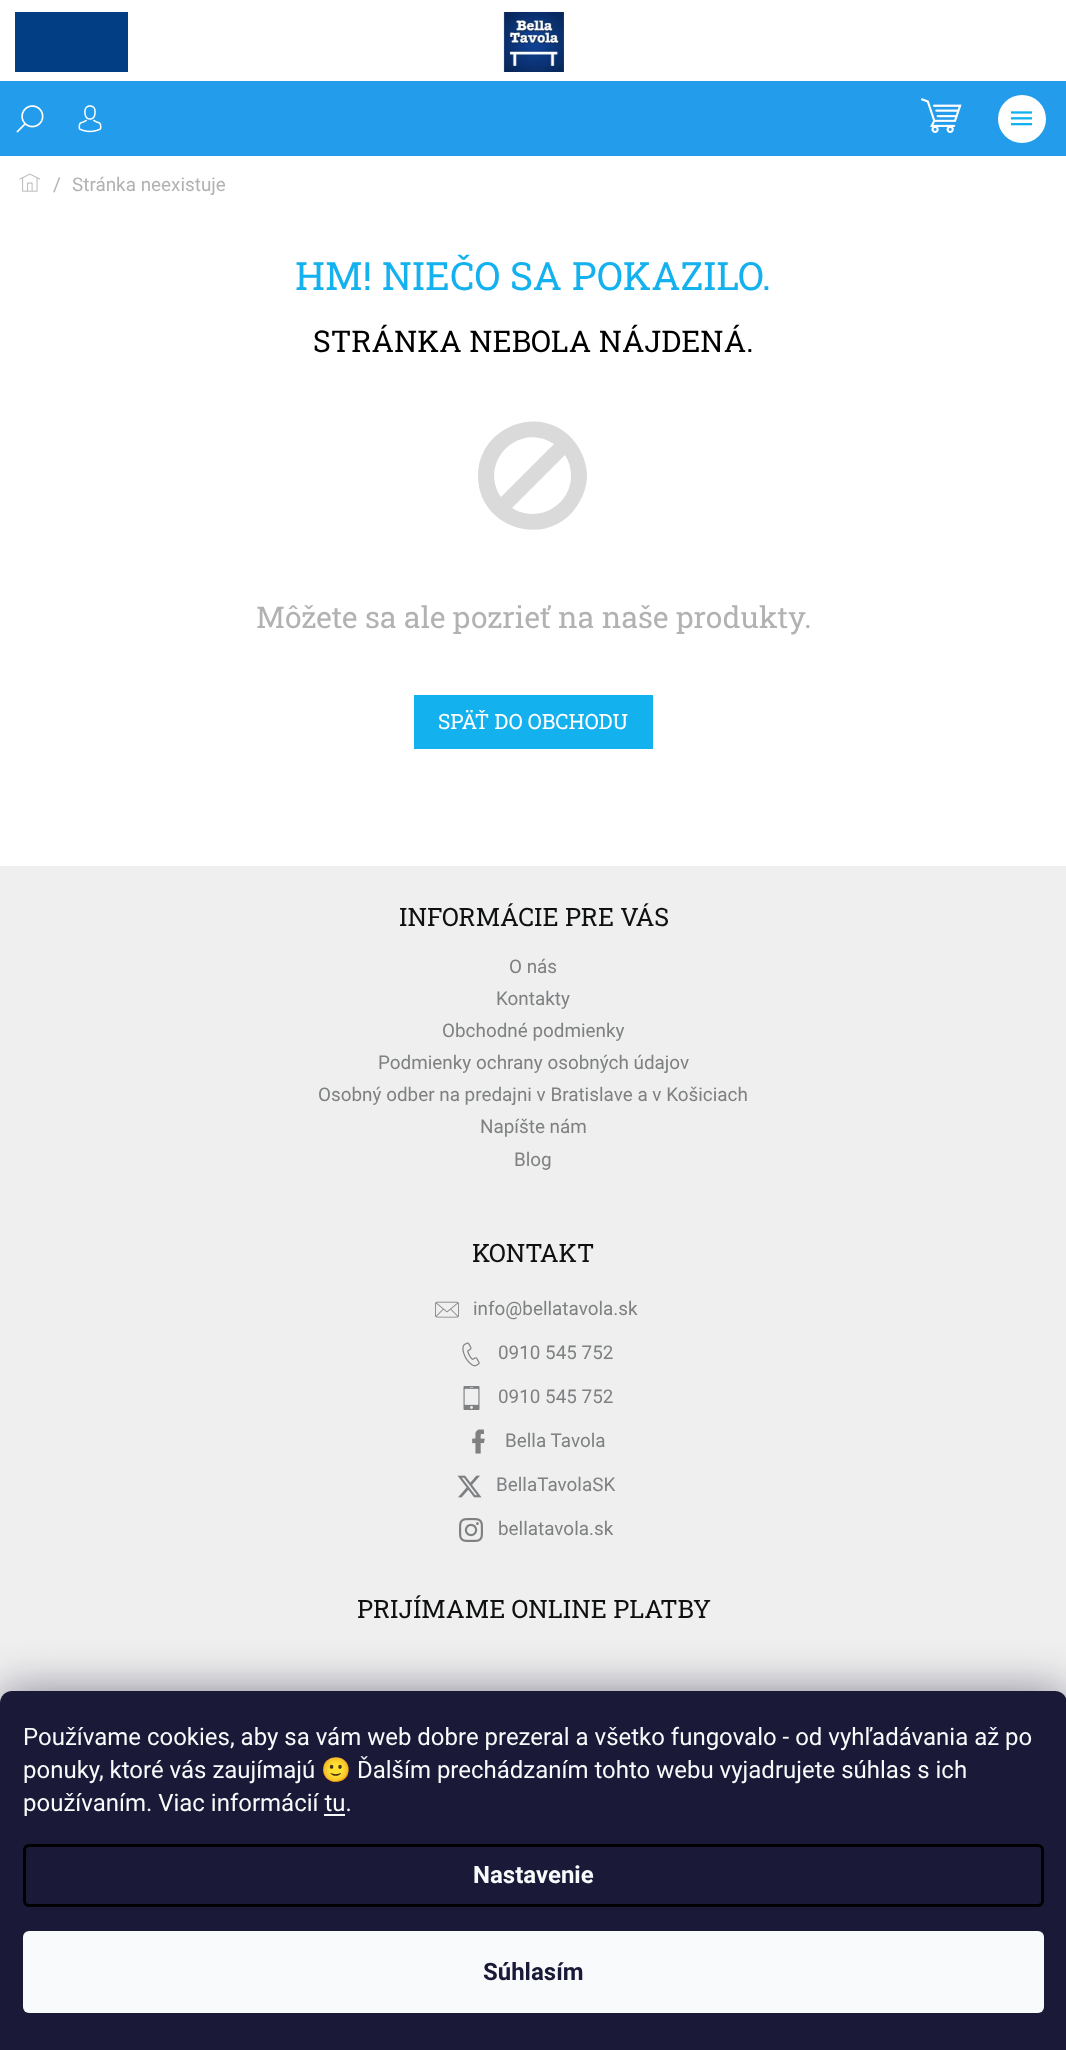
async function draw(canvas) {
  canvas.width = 1066
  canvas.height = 2050
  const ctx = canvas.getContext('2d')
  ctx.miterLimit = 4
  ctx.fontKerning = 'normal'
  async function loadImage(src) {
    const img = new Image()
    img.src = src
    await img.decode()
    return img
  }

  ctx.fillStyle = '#fff'
  ctx.fillRect(0, 0, 1066, 2050)
  ctx.fillStyle = '#023e84'
  ctx.fillRect(15, 12, 113, 60)
  ctx.drawImage(await loadImage('image0.png'), 503, 12, 61, 60)
  ctx.fillStyle = '#239ceb'
  ctx.fillRect(0, 81, 1066, 75)
  ctx.drawImage(await loadImage('image1.png'), 921, 98, 41, 35)
  ctx.drawImage(await loadImage('image2.png'), 16, 105, 28, 28)
  ctx.drawImage(await loadImage('image3.png'), 78, 105, 24, 28)
  ctx.fillStyle = '#fff'
  ctx.beginPath()
  ctx.arc(1022, 119, 24, 0, 2 * Math.PI)
  ctx.fill()
  ctx.drawImage(await loadImage('image4.png'), 1011, 111, 21, 15)
  ctx.drawImage(await loadImage('image5.png'), 19, 173, 21, 19)
  ctx.font = '18.9px Roboto'
  ctx.fillStyle = '#b2b2b2'
  ctx.fillText('/', 53, 191)
  ctx.fillText('Stránka neexistuje', 72, 191)
  ctx.font = '39px Roboto Slab'
  ctx.fillStyle = '#14b1ef'
  ctx.fillText('HM! NIEČO SA POKAZILO.', 295, 290)
  ctx.font = '30px Roboto Slab'
  ctx.fillStyle = '#000'
  ctx.fillText('STRÁNKA NEBOLA NÁJDENÁ.', 313, 352)
  ctx.fillStyle = '#dadada'
  ctx.beginPath()
  ctx.moveTo(571, 476)
  ctx.bezierCurveTo(571, 468, 569, 461, 565, 455)
  ctx.lineTo(512, 508)
  ctx.bezierCurveTo(537, 524, 571, 506, 571, 476)
  ctx.closePath()
  ctx.moveTo(501, 497)
  ctx.lineTo(554, 444)
  ctx.bezierCurveTo(519, 421, 478, 462, 501, 497)
  ctx.closePath()
  ctx.moveTo(587, 476)
  ctx.bezierCurveTo(587, 486, 583, 497, 577, 506)
  ctx.bezierCurveTo(548, 550, 478, 529, 478, 476)
  ctx.bezierCurveTo(478, 423, 548, 401, 577, 445)
  ctx.bezierCurveTo(583, 454, 587, 465, 587, 476)
  ctx.closePath()
  ctx.fill()
  ctx.fillStyle = '#b2b2b2'
  ctx.fillText('Môžete sa ale pozrieť na naše produkty.', 256, 628)
  ctx.fillStyle = '#14b1ef'
  ctx.fillRect(414, 695, 239, 54)
  ctx.font = '21px Roboto Slab'
  ctx.fillStyle = '#fff'
  ctx.fillText('SPÄŤ DO OBCHODU', 438, 729)
  ctx.fillStyle = '#efefef'
  ctx.fillRect(0, 866, 1066, 837)
  ctx.font = '25.25px Roboto Slab'
  ctx.fillStyle = '#0f1010'
  ctx.fillText('INFORMÁCIE PRE VÁS', 399, 926)
  ctx.font = '18.9px Roboto'
  ctx.fillStyle = '#7e8082'
  ctx.fillText('O nás', 509, 973)
  ctx.fillText('Kontakty', 496, 1005)
  ctx.fillText('Obchodné podmienky', 442, 1037)
  ctx.fillText('Podmienky ochrany osobných údajov', 378, 1069)
  ctx.fillText('Osobný odber na predajni v Bratislave a v Košiciach', 318, 1101)
  ctx.fillText('Napíšte nám', 480, 1133)
  ctx.fillText('Blog', 514, 1166)
  ctx.font = '25.25px Roboto Slab'
  ctx.fillStyle = '#0f1010'
  ctx.fillText('KONTAKT', 472, 1262)
  ctx.drawImage(await loadImage('image6.png'), 435, 1301, 24, 17)
  ctx.font = '18.9px Roboto'
  ctx.fillStyle = '#7e8082'
  ctx.fillText('info@bellatavola.sk', 473, 1315)
  ctx.drawImage(await loadImage('image7.png'), 462, 1342, 18, 25)
  ctx.fillText('0910 545 752', 498, 1359)
  ctx.drawImage(await loadImage('image8.png'), 463, 1386, 17, 24)
  ctx.fillText('0910 545 752', 498, 1403)
  ctx.drawImage(await loadImage('image9.png'), 472, 1429, 13, 25)
  ctx.fillText('Bella Tavola', 505, 1447)
  ctx.drawImage(await loadImage('image10.png'), 457, 1475, 25, 23)
  ctx.fillText('BellaTavolaSK', 496, 1491)
  ctx.drawImage(await loadImage('image11.png'), 459, 1518, 24, 24)
  ctx.fillText('bellatavola.sk', 498, 1535)
  ctx.font = '25.25px Roboto Slab'
  ctx.fillStyle = '#0f1010'
  ctx.fillText('PRIJÍMAME ONLINE PLATBY', 357, 1618)
  ctx.fillStyle = '#1b193980'
  ctx.filter = 'blur(22.5px)'
  ctx.beginPath()
  ctx.roundRect(0, 1691, 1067, 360, 12)
  ctx.fill()
  ctx.filter = 'none'
  ctx.fillStyle = '#1a1937'
  ctx.beginPath()
  ctx.moveTo(12, 1691)
  ctx.lineTo(1055, 1691)
  ctx.bezierCurveTo(1061.5, 1691, 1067, 1696.5, 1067, 1703)
  ctx.lineTo(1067, 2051)
  ctx.lineTo(0, 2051)
  ctx.lineTo(0, 1703)
  ctx.bezierCurveTo(0, 1696.5, 5.5, 1691, 12, 1691)
  ctx.closePath()
  ctx.fill()
  ctx.font = '24px Roboto'
  ctx.fillStyle = '#f8fafb'
  ctx.fillText('Používame cookies, aby sa vám web dobre prezeral a všetko fungovalo - od vyhľadávania až po', 23, 1745)
  ctx.fillText('ponuky, ktoré vás zaujímajú', 23, 1778)
  ctx.font = '24px Noto Color Emoji'
  ctx.fillText('🙂', 321, 1778)
  ctx.font = '24px Roboto'
  ctx.fillText('Ďalším prechádzaním tohto webu vyjadrujete súhlas s ich', 357, 1778)
  ctx.fillText('používaním. Viac informácií tu.', 23, 1811)
  ctx.fillRect(324, 1814, 21, 2)
  ctx.beginPath()
  ctx.roundRect(24.5, 1845.5, 1018, 60, 4.5)
  ctx.strokeStyle = '#000'
  ctx.lineWidth = 3
  ctx.stroke()
  ctx.font = 'bold 24px Roboto'
  ctx.fillText('Nastavenie', 473, 1883)
  ctx.beginPath()
  ctx.roundRect(23, 1931, 1021, 82, 6)
  ctx.fill()
  ctx.fillStyle = '#1a1937'
  ctx.fillText('Súhlasím', 483, 1980)
}

draw(document.querySelector('canvas'))
